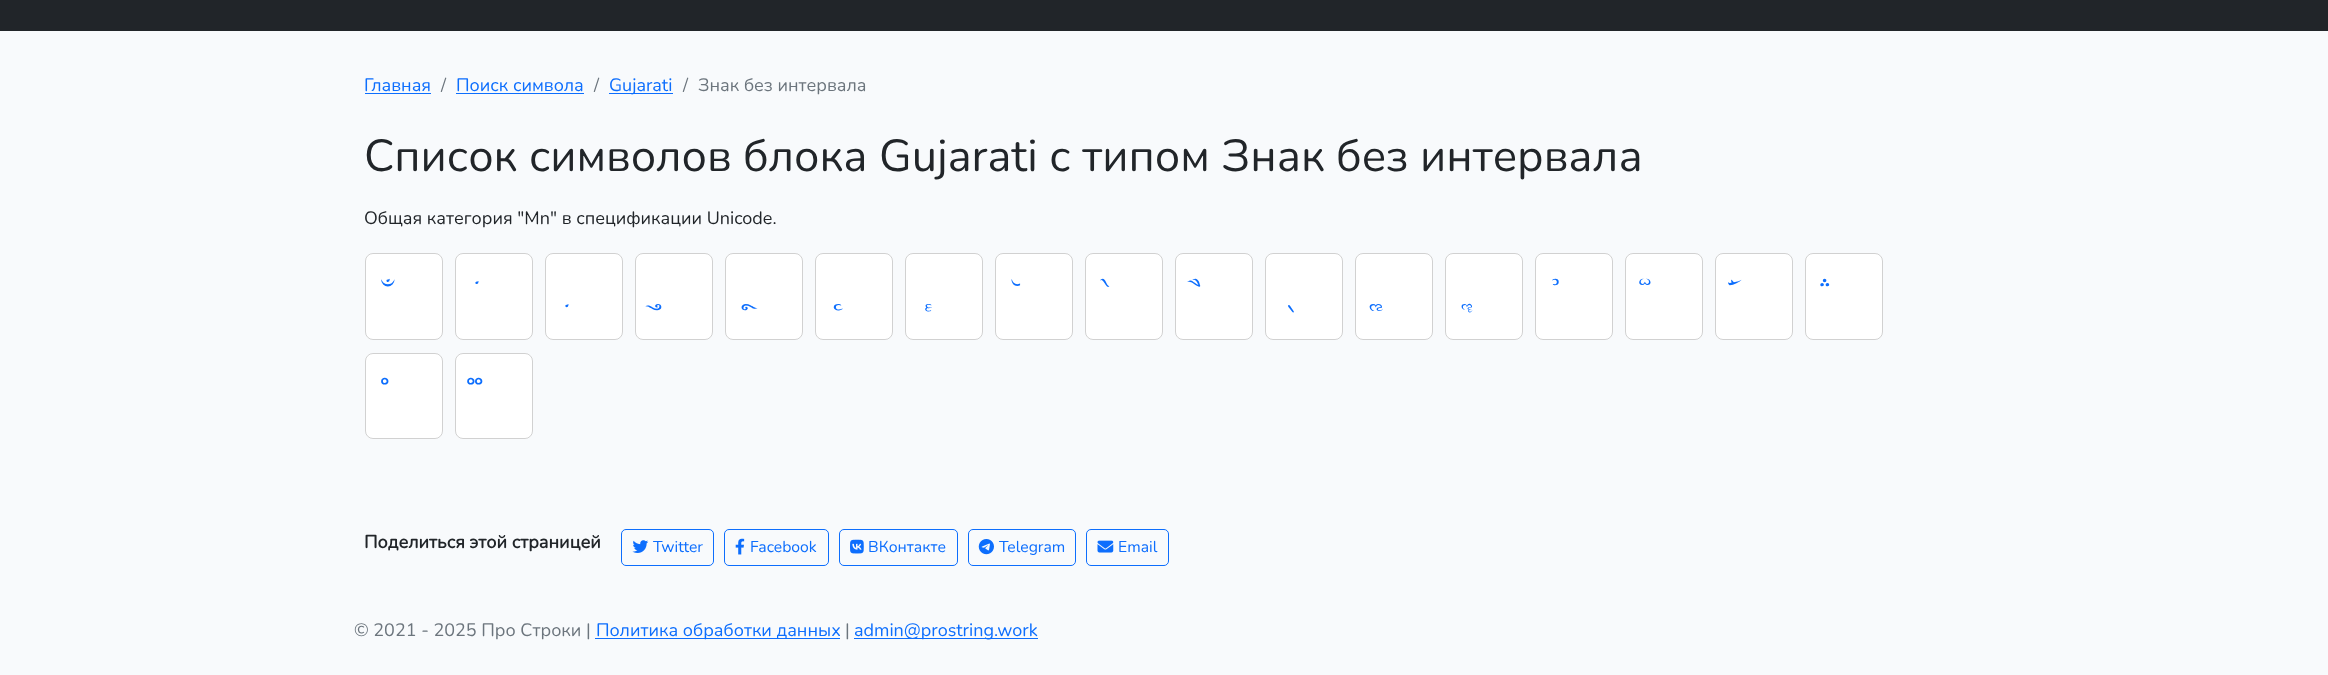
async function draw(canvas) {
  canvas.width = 2328
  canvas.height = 675
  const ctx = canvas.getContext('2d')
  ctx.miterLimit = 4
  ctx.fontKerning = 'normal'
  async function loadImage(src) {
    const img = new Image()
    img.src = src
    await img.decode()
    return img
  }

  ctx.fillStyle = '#f8fafc'
  ctx.fillRect(0, 0, 2328, 675)
  ctx.fillStyle = '#212529'
  ctx.fillRect(0, 0, 2328, 31)
  ctx.font = '200 18px Nunito'
  ctx.fillStyle = '#0d6efd'
  ctx.fillText('Главная', 364, 91)
  ctx.fillRect(365, 93, 66, 1)
  ctx.fillStyle = '#6c757d'
  ctx.fillText('/', 441, 91)
  ctx.fillStyle = '#0d6efd'
  ctx.fillText('Поиск символа', 456, 91)
  ctx.fillRect(456, 93, 128, 1)
  ctx.fillStyle = '#6c757d'
  ctx.fillText('/', 594, 91)
  ctx.fillStyle = '#0d6efd'
  ctx.fillRect(609, 93, 64, 1)
  ctx.fillText('Gujarati', 609, 91)
  ctx.fillStyle = '#6c757d'
  ctx.fillText('/', 683, 91)
  ctx.fillText('Знак без интервала', 698, 91)
  ctx.font = '200 45px Nunito'
  ctx.fillStyle = '#212529'
  ctx.fillText('Список символов блока Gujarati с типом Знак без интервала', 364, 171)
  ctx.font = '200 18px Nunito'
  ctx.fillText('Общая категория "Mn" в спецификации Unicode.', 364, 224)
  ctx.fillStyle = '#fff'
  ctx.beginPath()
  ctx.roundRect(365, 253, 78, 87, 8)
  ctx.fill()
  ctx.beginPath()
  ctx.roundRect(365.5, 253.5, 77, 86, 7.5)
  ctx.strokeStyle = '#0000002e'
  ctx.stroke()
  ctx.font = '28px FreeSerif'
  ctx.fillStyle = '#0d6efd'
  ctx.fillText('ઁ', 392, 304)
  ctx.fillStyle = '#fff'
  ctx.beginPath()
  ctx.roundRect(455, 253, 78, 87, 8)
  ctx.fill()
  ctx.beginPath()
  ctx.roundRect(455.5, 253.5, 77, 86, 7.5)
  ctx.stroke()
  ctx.fillStyle = '#0d6efd'
  ctx.fillText('ં', 482, 304)
  ctx.fillStyle = '#fff'
  ctx.beginPath()
  ctx.roundRect(545, 253, 78, 87, 8)
  ctx.fill()
  ctx.beginPath()
  ctx.roundRect(545.5, 253.5, 77, 86, 7.5)
  ctx.stroke()
  ctx.fillStyle = '#0d6efd'
  ctx.fillText('઼', 572, 304)
  ctx.fillStyle = '#fff'
  ctx.beginPath()
  ctx.roundRect(635, 253, 78, 87, 8)
  ctx.fill()
  ctx.beginPath()
  ctx.roundRect(635.5, 253.5, 77, 86, 7.5)
  ctx.stroke()
  ctx.fillStyle = '#0d6efd'
  ctx.fillText('ુ', 662, 304)
  ctx.fillStyle = '#fff'
  ctx.beginPath()
  ctx.roundRect(725, 253, 78, 87, 8)
  ctx.fill()
  ctx.beginPath()
  ctx.roundRect(725.5, 253.5, 77, 86, 7.5)
  ctx.stroke()
  ctx.fillStyle = '#0d6efd'
  ctx.fillText('ૂ', 752, 304)
  ctx.fillStyle = '#fff'
  ctx.beginPath()
  ctx.roundRect(815, 253, 78, 87, 8)
  ctx.fill()
  ctx.beginPath()
  ctx.roundRect(815.5, 253.5, 77, 86, 7.5)
  ctx.stroke()
  ctx.fillStyle = '#0d6efd'
  ctx.fillText('ૃ', 842, 304)
  ctx.fillStyle = '#fff'
  ctx.beginPath()
  ctx.roundRect(905, 253, 78, 87, 8)
  ctx.fill()
  ctx.beginPath()
  ctx.roundRect(905.5, 253.5, 77, 86, 7.5)
  ctx.stroke()
  ctx.fillStyle = '#0d6efd'
  ctx.fillText('ૄ', 932, 304)
  ctx.fillStyle = '#fff'
  ctx.beginPath()
  ctx.roundRect(995, 253, 78, 87, 8)
  ctx.fill()
  ctx.beginPath()
  ctx.roundRect(995.5, 253.5, 77, 86, 7.5)
  ctx.stroke()
  ctx.fillStyle = '#0d6efd'
  ctx.fillText('ૅ', 1022, 304)
  ctx.fillStyle = '#fff'
  ctx.beginPath()
  ctx.roundRect(1085, 253, 78, 87, 8)
  ctx.fill()
  ctx.beginPath()
  ctx.roundRect(1085.5, 253.5, 77, 86, 7.5)
  ctx.stroke()
  ctx.fillStyle = '#0d6efd'
  ctx.fillText('ે', 1112, 304)
  ctx.fillStyle = '#fff'
  ctx.beginPath()
  ctx.roundRect(1175, 253, 78, 87, 8)
  ctx.fill()
  ctx.beginPath()
  ctx.roundRect(1175.5, 253.5, 77, 86, 7.5)
  ctx.stroke()
  ctx.fillStyle = '#0d6efd'
  ctx.fillText('ૈ', 1202, 304)
  ctx.fillStyle = '#fff'
  ctx.beginPath()
  ctx.roundRect(1265, 253, 78, 87, 8)
  ctx.fill()
  ctx.beginPath()
  ctx.roundRect(1265.5, 253.5, 77, 86, 7.5)
  ctx.stroke()
  ctx.fillStyle = '#0d6efd'
  ctx.fillText('્', 1292, 304)
  ctx.fillStyle = '#fff'
  ctx.beginPath()
  ctx.roundRect(1355, 253, 78, 87, 8)
  ctx.fill()
  ctx.beginPath()
  ctx.roundRect(1355.5, 253.5, 77, 86, 7.5)
  ctx.stroke()
  ctx.fillStyle = '#0d6efd'
  ctx.fillText('ૢ', 1382, 304)
  ctx.fillStyle = '#fff'
  ctx.beginPath()
  ctx.roundRect(1445, 253, 78, 87, 8)
  ctx.fill()
  ctx.beginPath()
  ctx.roundRect(1445.5, 253.5, 77, 86, 7.5)
  ctx.stroke()
  ctx.fillStyle = '#0d6efd'
  ctx.fillText('ૣ', 1472, 304)
  ctx.fillStyle = '#fff'
  ctx.beginPath()
  ctx.roundRect(1535, 253, 78, 87, 8)
  ctx.fill()
  ctx.beginPath()
  ctx.roundRect(1535.5, 253.5, 77, 86, 7.5)
  ctx.stroke()
  ctx.fillStyle = '#0d6efd'
  ctx.fillText('ૺ', 1562, 304)
  ctx.fillStyle = '#fff'
  ctx.beginPath()
  ctx.roundRect(1625, 253, 78, 87, 8)
  ctx.fill()
  ctx.beginPath()
  ctx.roundRect(1625.5, 253.5, 77, 86, 7.5)
  ctx.stroke()
  ctx.fillStyle = '#0d6efd'
  ctx.fillText('ૻ', 1652, 304)
  ctx.fillStyle = '#fff'
  ctx.beginPath()
  ctx.roundRect(1715, 253, 78, 87, 8)
  ctx.fill()
  ctx.beginPath()
  ctx.roundRect(1715.5, 253.5, 77, 86, 7.5)
  ctx.stroke()
  ctx.fillStyle = '#0d6efd'
  ctx.fillText('ૼ', 1742, 304)
  ctx.fillStyle = '#fff'
  ctx.beginPath()
  ctx.roundRect(1805, 253, 78, 87, 8)
  ctx.fill()
  ctx.beginPath()
  ctx.roundRect(1805.5, 253.5, 77, 86, 7.5)
  ctx.stroke()
  ctx.fillStyle = '#0d6efd'
  ctx.fillText('૽', 1832, 304)
  ctx.fillStyle = '#fff'
  ctx.beginPath()
  ctx.roundRect(365, 353, 78, 86, 8)
  ctx.fill()
  ctx.beginPath()
  ctx.roundRect(365.5, 353.5, 77, 85, 7.5)
  ctx.stroke()
  ctx.fillStyle = '#0d6efd'
  ctx.fillText('૾', 392, 403)
  ctx.fillStyle = '#fff'
  ctx.beginPath()
  ctx.roundRect(455, 353, 78, 86, 8)
  ctx.fill()
  ctx.beginPath()
  ctx.roundRect(455.5, 353.5, 77, 85, 7.5)
  ctx.stroke()
  ctx.fillStyle = '#0d6efd'
  ctx.fillText('૿', 482, 403)
  ctx.font = 'bold 18px Nunito'
  ctx.fillStyle = '#212529'
  ctx.fillText('Поделиться этой страницей', 364, 548)
  ctx.beginPath()
  ctx.roundRect(621.5, 529.5, 92, 36, 4.5)
  ctx.strokeStyle = '#0d6efd'
  ctx.stroke()
  ctx.drawImage(await loadImage('image0.png'), 632, 540, 17, 13)
  ctx.font = '200 15.75px Nunito'
  ctx.fillStyle = '#0d6efd'
  ctx.fillText('Twitter', 653, 552)
  ctx.beginPath()
  ctx.roundRect(724.5, 529.5, 104, 36, 4.5)
  ctx.stroke()
  ctx.drawImage(await loadImage('image1.png'), 735, 538, 10, 17)
  ctx.fillText('Facebook', 750, 552)
  ctx.beginPath()
  ctx.roundRect(839.5, 529.5, 118, 36, 4.5)
  ctx.stroke()
  ctx.drawImage(await loadImage('image2.png'), 850, 539, 14, 15)
  ctx.fillText('ВКонтакте', 868, 552)
  ctx.beginPath()
  ctx.roundRect(968.5, 529.5, 107, 36, 4.5)
  ctx.stroke()
  ctx.drawImage(await loadImage('image3.png'), 978, 539, 16, 16)
  ctx.fillText('Telegram', 999, 552)
  ctx.beginPath()
  ctx.roundRect(1086.5, 529.5, 82, 36, 4.5)
  ctx.stroke()
  ctx.drawImage(await loadImage('image4.png'), 1097, 540, 17, 13)
  ctx.fillText('Email', 1118, 552)
  ctx.font = '200 18px Nunito'
  ctx.fillStyle = '#6c757d'
  ctx.fillText('© 2021 - 2025 Про Строки |', 354, 636)
  ctx.fillStyle = '#0d6efd'
  ctx.fillRect(595, 638, 245, 1)
  ctx.fillText('Политика обработки данных', 596, 636)
  ctx.fillStyle = '#6c757d'
  ctx.fillText('|', 845, 636)
  ctx.fillStyle = '#0d6efd'
  ctx.fillRect(854, 638, 184, 1)
  ctx.fillText('admin@prostring.work', 854, 636)
}

draw(document.querySelector('canvas'))
